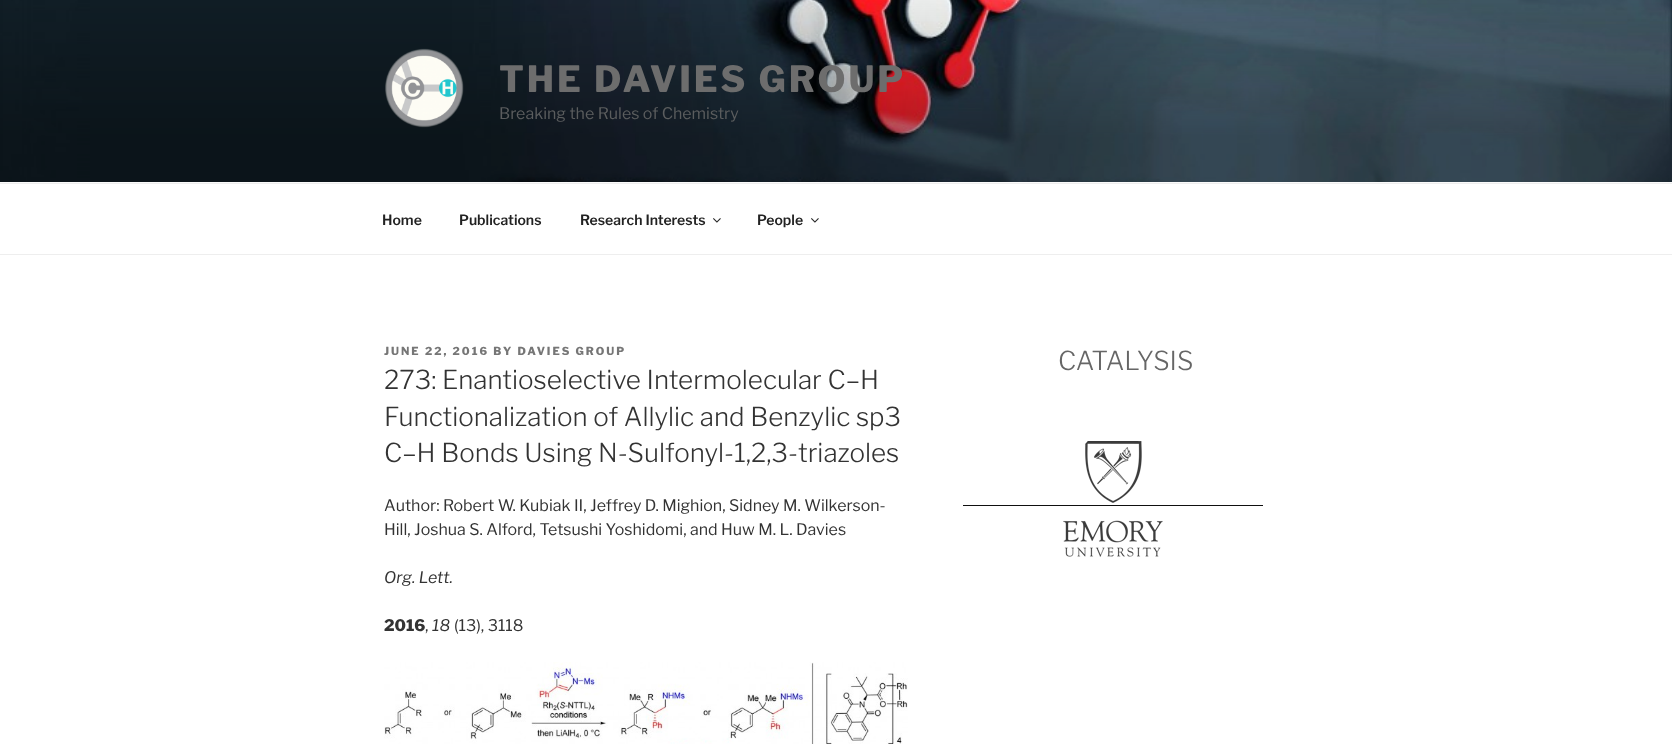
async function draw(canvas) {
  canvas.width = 1672
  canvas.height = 744
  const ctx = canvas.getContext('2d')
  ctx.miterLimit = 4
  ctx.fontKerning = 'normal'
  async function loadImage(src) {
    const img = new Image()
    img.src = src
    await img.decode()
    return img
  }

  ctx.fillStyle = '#fff'
  ctx.fillRect(0, 0, 1672, 744)
  ctx.fillStyle = '#fafafa'
  ctx.fillRect(0, 182, 1672, 1)
  ctx.drawImage(await loadImage('image0.png'), 0, 0, 1672, 182)
  ctx.drawImage(await loadImage('image1.png'), 385, 48, 79, 80)
  ctx.letterSpacing = '2.9px'
  ctx.font = '100 36px Libre Franklin'
  ctx.fillStyle = '#6d6d6d'
  ctx.fillText('THE DAVIES GROUP', 499, 92)
  ctx.letterSpacing = '0px'
  ctx.font = '100 16px "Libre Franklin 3"'
  ctx.fillStyle = '#5b5d5e'
  ctx.fillText('Breaking the Rules of Chemistry', 499, 119)
  ctx.fillStyle = '#eee'
  ctx.fillRect(0, 183, 1672, 1)
  ctx.fillRect(0, 254, 1672, 1)
  ctx.font = '100 14px "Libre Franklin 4"'
  ctx.fillStyle = '#222'
  ctx.fillText('Home', 382, 225)
  ctx.fillText('Publications', 459, 225)
  ctx.fillText('Research Interests', 580, 225)
  ctx.drawImage(await loadImage('image2.png'), 713, 218, 8, 5)
  ctx.fillText('People', 757, 225)
  ctx.drawImage(await loadImage('image2.png'), 811, 218, 8, 5)
  ctx.letterSpacing = '2px'
  ctx.font = '100 11px Libre Franklin'
  ctx.fillStyle = '#767676'
  ctx.fillText('JUNE 22, 2016 BY DAVIES GROUP', 384, 355)
  ctx.letterSpacing = '0px'
  ctx.font = '100 26px "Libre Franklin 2"'
  ctx.fillStyle = '#333'
  ctx.fillText('273: Enantioselective Intermolecular C–H', 384, 389)
  ctx.fillText('Functionalization of Allylic and Benzylic sp3', 384, 426)
  ctx.fillText('C–H Bonds Using N-Sulfonyl-1,2,3-triazoles', 384, 462)
  ctx.font = '100 16px "Libre Franklin 3"'
  ctx.fillText('Author: Robert W. Kubiak II, Jeffrey D. Mighion, Sidney M. Wilkerson-', 384, 511)
  ctx.fillText('Hill, Joshua S. Alford, Tetsushi Yoshidomi, and Huw M. L. Davies', 384, 535)
  ctx.font = 'italic 100 16px Libre Franklin'
  ctx.fillText('Org. Lett.', 384, 583)
  ctx.font = '100 16px Libre Franklin'
  ctx.fillText('2016', 384, 631)
  ctx.font = '100 16px "Libre Franklin 3"'
  ctx.fillText(',', 425, 631)
  ctx.font = 'italic 100 16px Libre Franklin'
  ctx.fillText('18', 432, 631)
  ctx.font = '100 16px "Libre Franklin 3"'
  ctx.fillText('(13), 3118', 454, 631)
  ctx.drawImage(await loadImage('image3.png'), 384, 662, 524, 82)
  ctx.font = '100 26px "Libre Franklin 2"'
  ctx.fillStyle = '#666'
  ctx.fillText('CATALYSIS', 1058, 370)
  ctx.fillStyle = '#0f0f0f'
  ctx.fillRect(963, 505, 300, 1)
  ctx.drawImage(await loadImage('image4.png'), 1063, 441, 100, 116)
}

draw(document.querySelector('canvas'))
